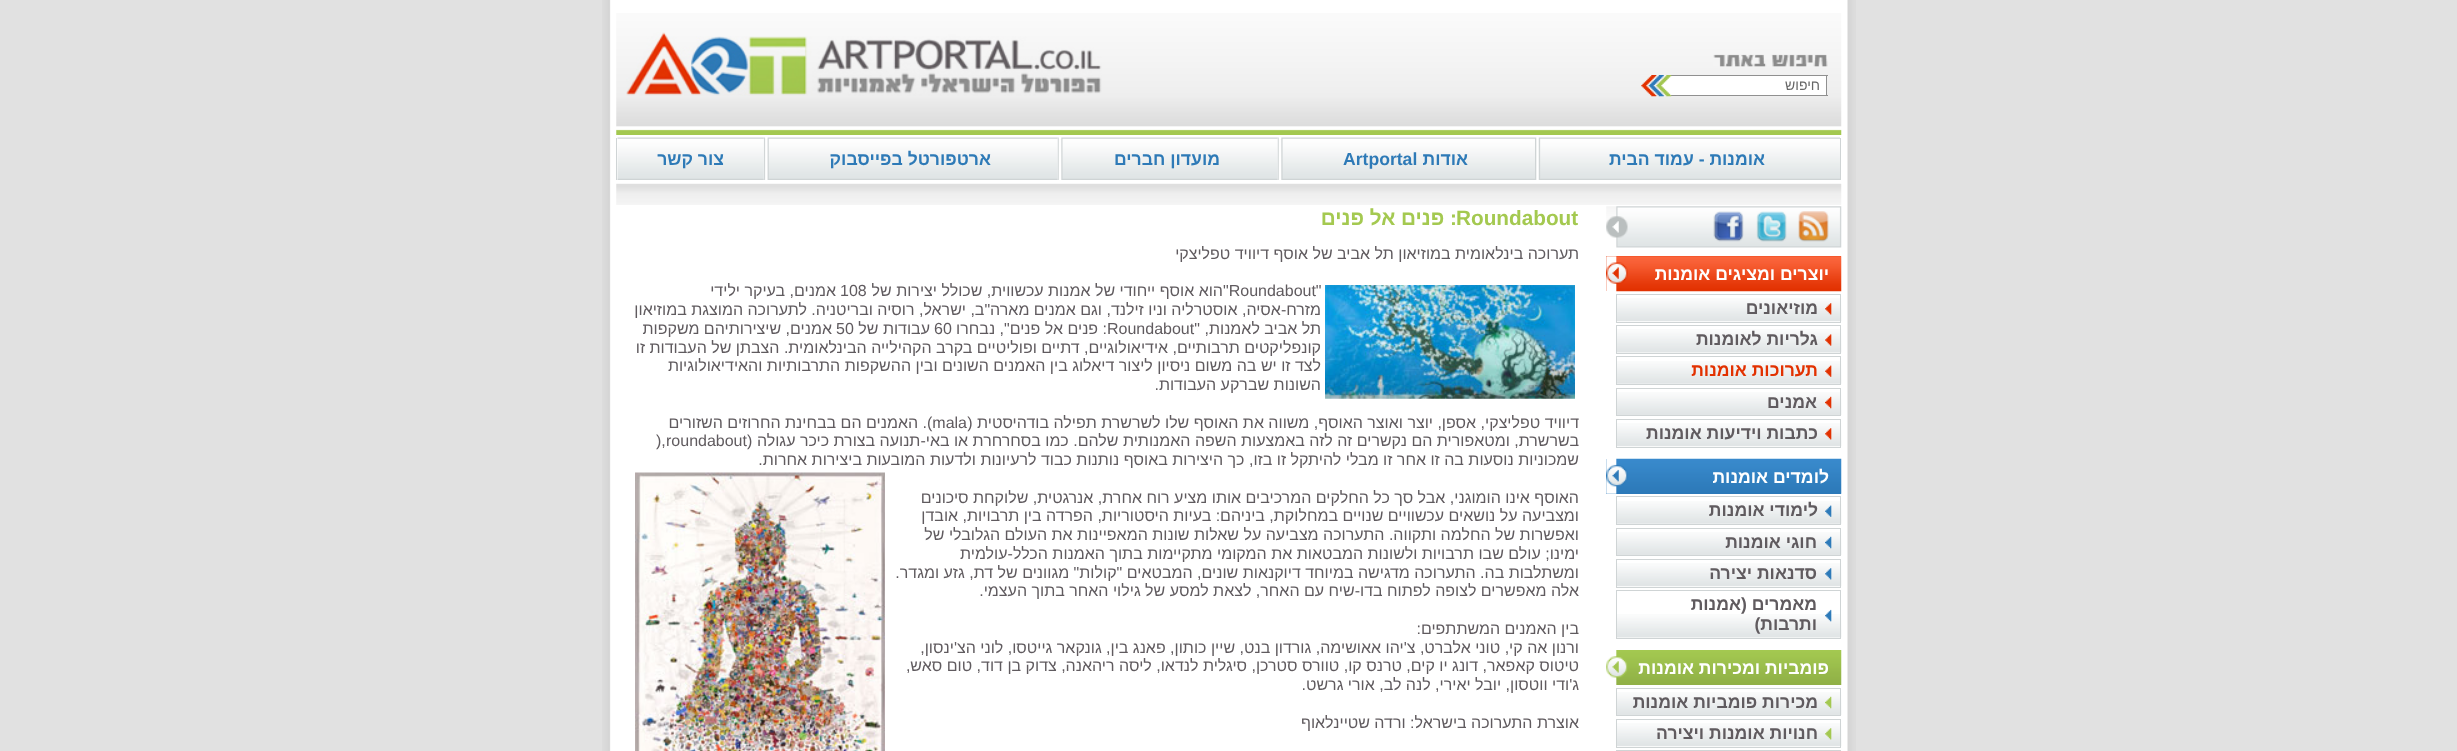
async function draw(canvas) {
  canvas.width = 2457
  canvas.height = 751
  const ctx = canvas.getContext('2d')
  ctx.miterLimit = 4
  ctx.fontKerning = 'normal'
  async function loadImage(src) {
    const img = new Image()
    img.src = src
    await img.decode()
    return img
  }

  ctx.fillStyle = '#e1e1e1'
  ctx.fillRect(0, 0, 2457, 751)
  ctx.drawImage(await loadImage('image0.png'), 602, 0, 1254, 751)
  ctx.drawImage(await loadImage('image1.png'), 616, 13, 1226, 122)
  ctx.drawImage(await loadImage('image2.png'), 1713, 54, 115, 13)
  ctx.fillStyle = '#fff'
  ctx.fillRect(1671, 76, 155, 19)
  ctx.fillStyle = '#909090'
  ctx.fillRect(1671, 75, 157, 1)
  ctx.fillRect(1826, 75, 1, 21)
  ctx.fillRect(1671, 95, 157, 1)
  ctx.direction = 'rtl'
  ctx.font = '14px Liberation Sans'
  ctx.fillStyle = '#676767'
  ctx.fillText('חיפוש', 1820, 90)
  ctx.drawImage(await loadImage('image3.png'), 1641, 75, 31, 22)
  ctx.drawImage(await loadImage('image4.png'), 626, 32, 476, 64)
  ctx.drawImage(await loadImage('image5.png'), 616, 183, 1226, 22)
  ctx.fillStyle = '#cfd4d5'
  ctx.fillRect(1840, 138, 1, 42)
  ctx.fillRect(616, 138, 1, 42)
  ctx.drawImage(await loadImage('image6.png'), 1535, 137, 305, 43)
  ctx.font = 'bold 17.6px Liberation Sans'
  ctx.fillStyle = '#2e7ab7'
  ctx.fillText('אומנות - עמוד הבית', 1765, 165)
  ctx.drawImage(await loadImage('image7.png'), 1277, 137, 258, 43)
  ctx.fillText('אודות', 1468, 165)
  ctx.direction = 'ltr'
  ctx.fillText('Artportal', 1343, 165)
  ctx.drawImage(await loadImage('image8.png'), 1057, 137, 221, 43)
  ctx.direction = 'rtl'
  ctx.fillText('מועדון חברים', 1220, 165)
  ctx.drawImage(await loadImage('image9.png'), 763, 137, 295, 43)
  ctx.fillText('ארטפורטל בפייסבוק', 991, 165)
  ctx.drawImage(await loadImage('image10.png'), 617, 137, 147, 43)
  ctx.fillText('צור קשר', 724, 165)
  ctx.drawImage(await loadImage('image11.png'), 1606, 206, 236, 42)
  ctx.drawImage(await loadImage('image12.png'), 1798, 211, 31, 31)
  ctx.drawImage(await loadImage('image13.png'), 1756, 211, 31, 31)
  ctx.drawImage(await loadImage('image14.png'), 1713, 211, 31, 31)
  ctx.fillStyle = '#e23201'
  ctx.fillRect(1606, 256, 235, 35)
  ctx.drawImage(await loadImage('image15.png'), 1606, 256, 236, 36)
  ctx.fillStyle = '#fff'
  ctx.fillText('יוצרים ומציגים אומנות', 1829, 280)
  ctx.drawImage(await loadImage('image16.png'), 1617, 298, 225, 24)
  ctx.strokeStyle = '#cfd4d5'
  ctx.strokeRect(1616.5, 294.5, 224, 28)
  ctx.drawImage(await loadImage('image17.png'), 1825, 303, 7, 12)
  ctx.fillStyle = '#605b5f'
  ctx.fillText('מוזיאונים', 1818, 314)
  ctx.drawImage(await loadImage('image18.png'), 1617, 329, 225, 24)
  ctx.strokeRect(1616.5, 325.5, 224, 28)
  ctx.drawImage(await loadImage('image19.png'), 1825, 334, 7, 12)
  ctx.fillText('גלריות לאומנות', 1818, 345)
  ctx.drawImage(await loadImage('image20.png'), 1617, 361, 225, 23)
  ctx.strokeRect(1616.5, 356.5, 224, 28)
  ctx.drawImage(await loadImage('image21.png'), 1825, 365, 7, 12)
  ctx.fillStyle = '#e23100'
  ctx.fillText('תערוכות אומנות', 1818, 376)
  ctx.drawImage(await loadImage('image22.png'), 1617, 392, 225, 23)
  ctx.strokeRect(1616.5, 388.5, 224, 27)
  ctx.drawImage(await loadImage('image23.png'), 1825, 396, 7, 13)
  ctx.fillStyle = '#605b5f'
  ctx.fillText('אמנים', 1817, 408)
  ctx.drawImage(await loadImage('image16.png'), 1617, 423, 225, 24)
  ctx.strokeRect(1616.5, 419.5, 224, 28)
  ctx.drawImage(await loadImage('image17.png'), 1825, 428, 7, 12)
  ctx.fillText('כתבות וידיעות אומנות', 1818, 439)
  ctx.fillStyle = '#2d7bba'
  ctx.fillRect(1606, 459, 235, 35)
  ctx.drawImage(await loadImage('image24.png'), 1606, 458, 236, 36)
  ctx.fillStyle = '#fff'
  ctx.fillText('לומדים אומנות', 1829, 483)
  ctx.drawImage(await loadImage('image20.png'), 1617, 501, 225, 23)
  ctx.strokeRect(1616.5, 496.5, 224, 28)
  ctx.drawImage(await loadImage('image25.png'), 1825, 505, 7, 12)
  ctx.fillStyle = '#605b5f'
  ctx.fillText('לימודי אומנות', 1818, 516)
  ctx.drawImage(await loadImage('image22.png'), 1617, 532, 225, 23)
  ctx.strokeRect(1616.5, 528.5, 224, 27)
  ctx.drawImage(await loadImage('image26.png'), 1825, 536, 7, 13)
  ctx.fillText('חוגי אומנות', 1817, 548)
  ctx.drawImage(await loadImage('image16.png'), 1617, 563, 225, 24)
  ctx.strokeRect(1616.5, 559.5, 224, 28)
  ctx.drawImage(await loadImage('image27.png'), 1825, 568, 7, 12)
  ctx.fillText('סדנאות יצירה', 1817, 579)
  ctx.drawImage(await loadImage('image18.png'), 1617, 614, 225, 24)
  ctx.strokeRect(1616.5, 590.5, 224, 48)
  ctx.drawImage(await loadImage('image28.png'), 1825, 609, 7, 13)
  ctx.fillText('מאמרים (אמנות', 1817, 610)
  ctx.fillText('ותרבות)', 1817, 630)
  ctx.drawImage(await loadImage('image29.png'), 1606, 650, 236, 35)
  ctx.fillStyle = '#fff'
  ctx.fillText('פומביות ומכירות אומנות', 1829, 674)
  ctx.drawImage(await loadImage('image22.png'), 1617, 692, 225, 23)
  ctx.strokeRect(1616.5, 688.5, 224, 27)
  ctx.drawImage(await loadImage('image30.png'), 1825, 696, 7, 13)
  ctx.fillStyle = '#605b5f'
  ctx.fillText('מכירות פומביות אומנות', 1818, 708)
  ctx.drawImage(await loadImage('image16.png'), 1617, 723, 225, 24)
  ctx.strokeRect(1616.5, 719.5, 224, 28)
  ctx.drawImage(await loadImage('image31.png'), 1825, 728, 7, 12)
  ctx.fillText('חנויות אומנות ויצירה', 1818, 739)
  ctx.strokeRect(1616.5, 750.5, 224, 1)
  ctx.direction = 'ltr'
  ctx.font = 'bold 20.75px Liberation Sans'
  ctx.fillStyle = '#a4c950'
  ctx.fillText('Roundabout', 1456, 225)
  ctx.direction = 'rtl'
  ctx.fillText(': פנים אל פנים', 1457, 225)
  ctx.font = '16px Liberation Sans'
  ctx.fillStyle = '#605b5f'
  ctx.fillText('תערוכה בינלאומית במוזיאון תל אביב של אוסף דיוויד טפליצקי', 1579, 259)
  ctx.drawImage(await loadImage('image32.png'), 1325, 285, 250, 114)
  ctx.direction = 'ltr'
  ctx.fillText('"Roundabout"', 1223, 296)
  ctx.direction = 'rtl'
  ctx.fillText('הוא אוסף ייחודי של אמנות עכשווית, שכולל יצירות של', 1223, 296)
  ctx.direction = 'ltr'
  ctx.fillText('108', 840, 296)
  ctx.direction = 'rtl'
  ctx.fillText('אמנים, בעיקר ילידי', 836, 296)
  ctx.fillText('מזרח-אסיה, אוסטרליה וניו זילנד, וגם אמנים מארה"ב, ישראל, רוסיה ובריטניה. לתערוכה המוצגת במוזיאון', 1321, 315)
  ctx.fillText('תל אביב לאמנות, "', 1321, 334)
  ctx.direction = 'ltr'
  ctx.fillText('Roundabout', 1107, 334)
  ctx.direction = 'rtl'
  ctx.fillText(': פנים אל פנים", נבחרו', 1107, 334)
  ctx.direction = 'ltr'
  ctx.fillText('60', 934, 334)
  ctx.direction = 'rtl'
  ctx.fillText('עבודות של', 930, 334)
  ctx.direction = 'ltr'
  ctx.fillText('50', 836, 334)
  ctx.direction = 'rtl'
  ctx.fillText('אמנים, שיצירותיהם משקפות', 832, 334)
  ctx.fillText('קונפליקטים תרבותיים, אידיאולוגיים, דתיים ופוליטיים בקרב הקהילייה הבינלאומית. הצבתן של העבודות זו', 1321, 353)
  ctx.fillText('לצד זו יש בה משום ניסיון ליצור דיאלוג בין האמנים השונים ובין ההשקפות התרבותיות והאידיאולוגיות', 1321, 371)
  ctx.fillText('השונות שברקע העבודות.', 1321, 390)
  ctx.fillText('דיוויד טפליצקי, אספן, יוצר ואוצר האוסף, משווה את האוסף שלו לשרשרת תפילה בודהיסטית (', 1579, 428)
  ctx.direction = 'ltr'
  ctx.fillText('(mala', 927, 428)
  ctx.direction = 'rtl'
  ctx.fillText('. האמנים הם בבחינת החרוזים השזורים', 927, 428)
  ctx.fillText('בשרשרת, ומטאפורית הם נקשרים זה לזה באמצעות השפה האמנותית שלהם. כמו בסחרחרת או באי-תנועה בצורת כיכר עגולה', 1579, 446)
  ctx.direction = 'ltr'
  ctx.fillText('roundabout)', 666, 446)
  ctx.fillText('),', 656, 446)
  ctx.direction = 'rtl'
  ctx.fillText('שמכוניות נוסעות בה זו אחר זו מבלי להיתקל זו בזו, כך היצירות באוסף נותנות כבוד לרעיונות ולדעות המובעות ביצירות אחרות.', 1579, 465)
  ctx.fillText('האוסף אינו הומוגני, אבל סך כל החלקים המרכיבים אותו מציע רוח אחרת, אנרגטית, שלוקחת סיכונים', 1579, 503)
  ctx.fillText('ומצביעה על נושאים עכשוויים שנויים במחלוקת, ביניהם: בעיות היסטוריות, הפרדה בין תרבויות, אובדן', 1579, 521)
  ctx.fillText('ואפשרות של החלמה ותקווה. התערוכה מצביעה על שאלות שונות המאפיינות את העולם הגלובלי של', 1579, 540)
  ctx.fillText('ימינו; עולם שבו תרבויות ולשונות המבטאות את המקומי מתקיימות בתוך האמנות הכלל-עולמית', 1579, 559)
  ctx.fillText('ומשתלבות בה. התערוכה מדגישה במיוחד דיוקנאות שונים, המבטאים "קולות" מגוונים של דת, גזע ומגדר.', 1579, 578)
  ctx.fillText('אלה מאפשרים לצופה לפתוח בדו-שיח עם האחר, לצאת למסע של גילוי האחר בתוך העצמי.', 1579, 596)
  ctx.drawImage(await loadImage('image33.png'), 635, 472, 250, 279)
  ctx.fillText('בין האמנים המשתתפים:', 1579, 634)
  ctx.fillText('ורנון אה קי, טוני אלברט, צ\'יהו אאושימה, גורדון בנט, שיין כותון, פאנג בין, גונקאר גייטסו, לוני הצ\'ינסון,', 1579, 653)
  ctx.fillText('טיטוס קאפאר, דונג יו קים, טרנס קו, טוורס סטרכן, סיגלית לנדאו, ליסה ריהאנה, צדוק בן דוד, טום סאש,', 1579, 671)
  ctx.fillText('ג\'ודי ווטסון, יובל יאירי, לנה לב, אורי גרשט.', 1579, 690)
  ctx.fillText('אוצרת התערוכה בישראל: ורדה שטיינלאוף', 1579, 728)
}

draw(document.querySelector('canvas'))
